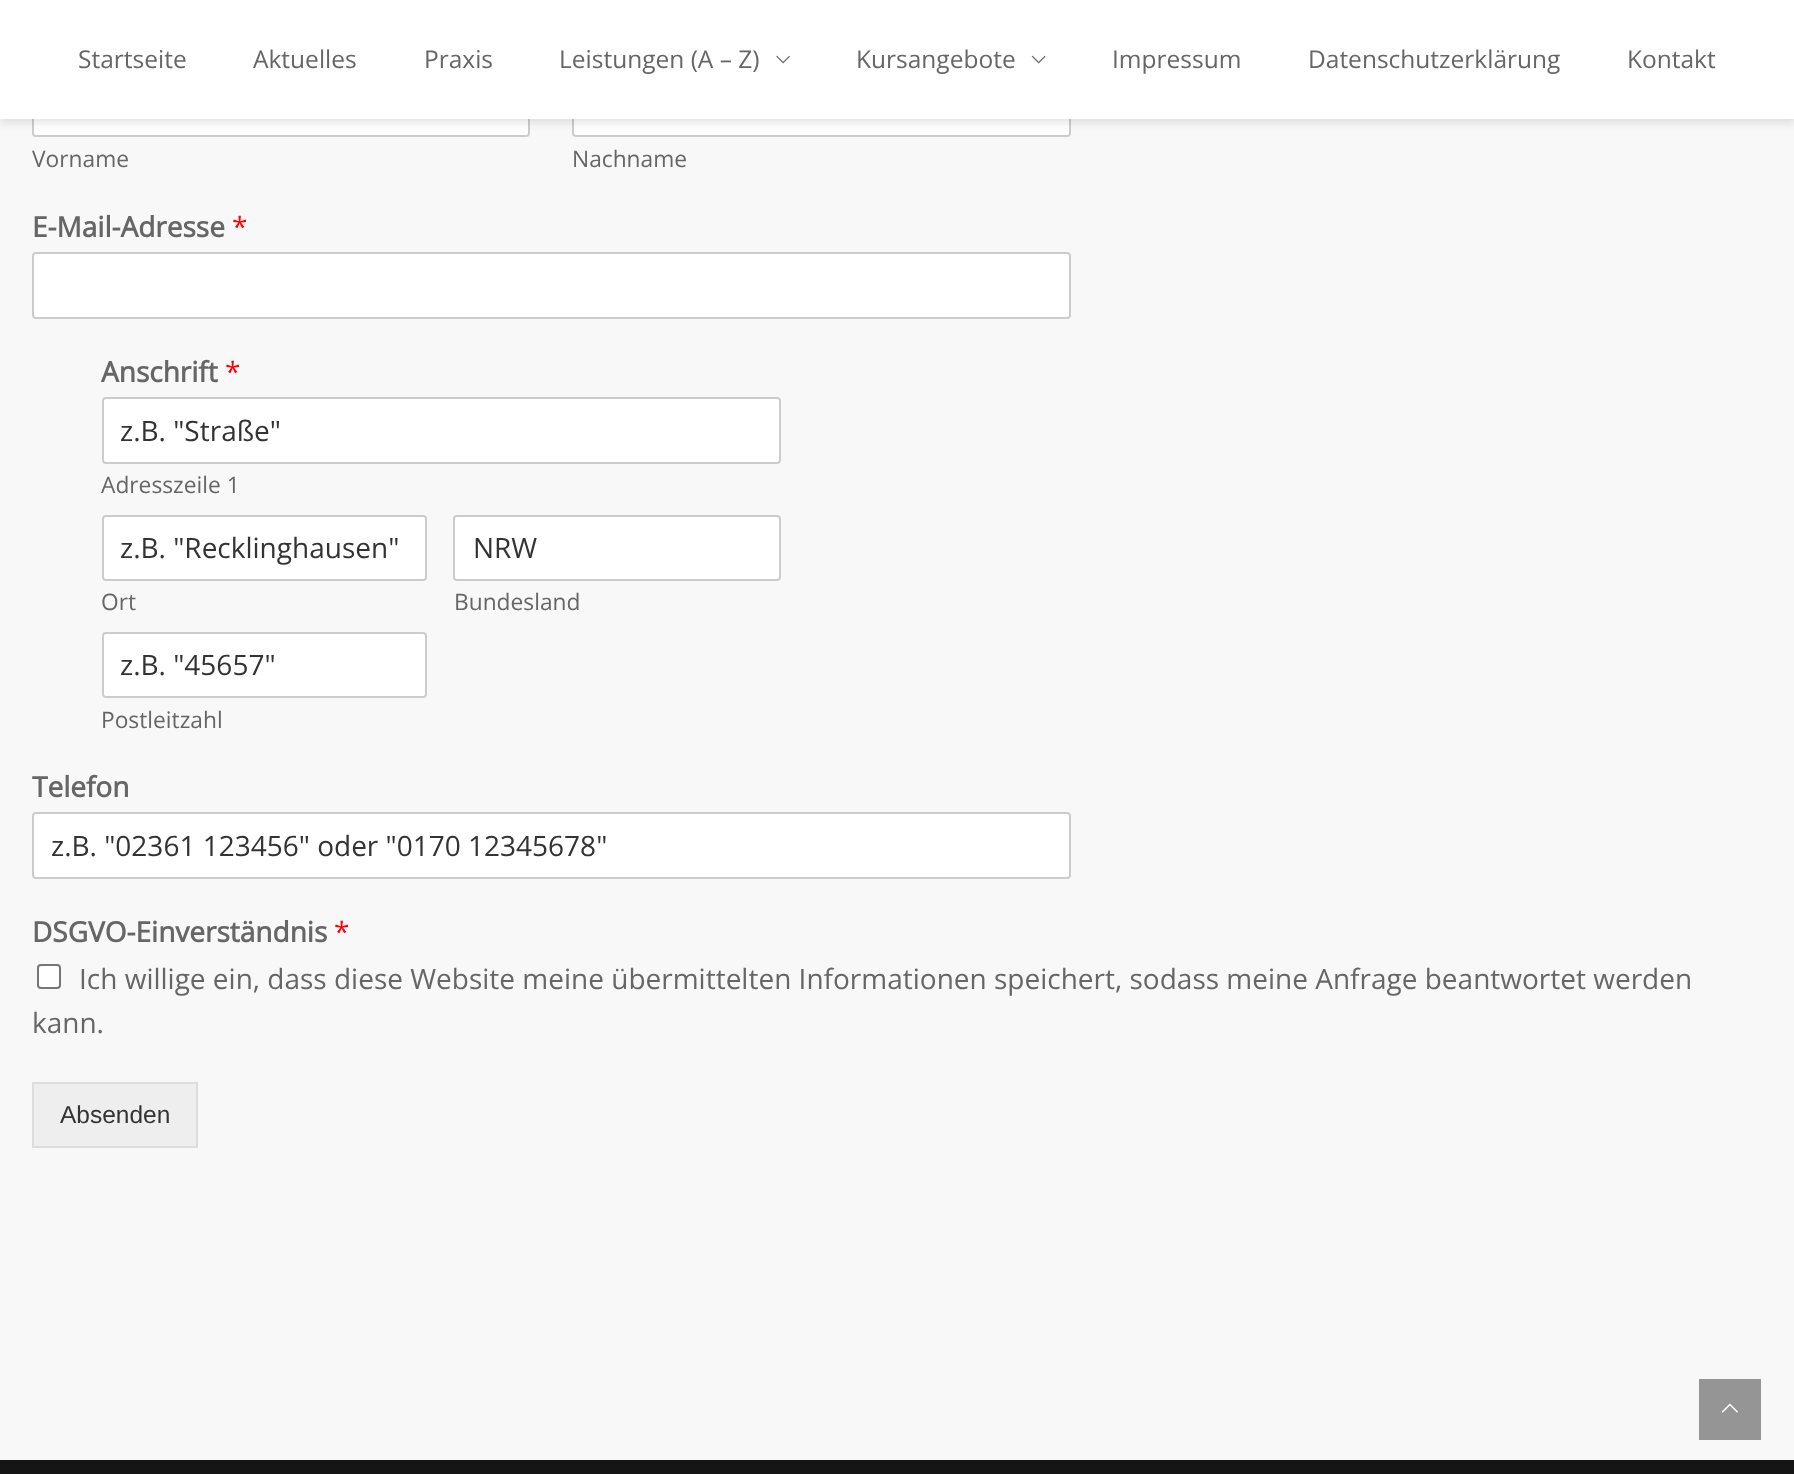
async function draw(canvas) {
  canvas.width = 1794
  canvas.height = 1474
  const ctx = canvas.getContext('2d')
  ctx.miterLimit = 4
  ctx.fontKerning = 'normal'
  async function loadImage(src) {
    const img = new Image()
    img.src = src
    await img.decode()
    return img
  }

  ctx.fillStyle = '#f8f8f8'
  ctx.fillRect(0, 0, 1794, 1474)
  ctx.fillStyle = '#fff'
  ctx.beginPath()
  ctx.roundRect(33, 71, 496, 65, 3)
  ctx.fill()
  ctx.strokeStyle = '#ccc'
  ctx.lineWidth = 2
  ctx.stroke()
  ctx.beginPath()
  ctx.roundRect(573, 71, 497, 65, 3)
  ctx.fill()
  ctx.stroke()
  ctx.fillStyle = '#0000001a'
  ctx.filter = 'blur(4.5px)'
  ctx.beginPath()
  ctx.rect(0, 4, 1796, 119)
  ctx.fill()
  ctx.filter = 'none'
  ctx.fillStyle = '#fff'
  ctx.fillRect(0, 0, 1794, 119)
  ctx.font = '24.5px Open Sans'
  ctx.fillStyle = '#666'
  ctx.fillText('Startseite', 78, 68)
  ctx.fillText('Aktuelles', 253, 68)
  ctx.fillText('Praxis', 424, 68)
  ctx.fillText('Leistungen (A – Z)', 559, 68)
  ctx.drawImage(await loadImage('image0.png'), 776, 55, 14, 9)
  ctx.fillText('Kursangebote', 856, 68)
  ctx.drawImage(await loadImage('image1.png'), 1031, 55, 15, 9)
  ctx.fillText('Impressum', 1112, 68)
  ctx.fillText('Datenschutzerklärung', 1308, 68)
  ctx.fillText('Kontakt', 1627, 68)
  ctx.font = '22.75px Open Sans'
  ctx.fillText('Vorname', 32, 167)
  ctx.fillText('Nachname', 572, 167)
  ctx.font = 'bold 28px Open Sans'
  ctx.fillText('E-Mail-Adresse', 32, 237)
  ctx.font = '28px Open Sans'
  ctx.fillStyle = '#f00'
  ctx.fillText('*', 232, 237)
  ctx.fillStyle = '#fff'
  ctx.beginPath()
  ctx.roundRect(33, 253, 1037, 65, 3)
  ctx.fill()
  ctx.stroke()
  ctx.font = 'bold 28px Open Sans'
  ctx.fillStyle = '#666'
  ctx.fillText('Anschrift', 101, 382)
  ctx.font = '28px Open Sans'
  ctx.fillStyle = '#f00'
  ctx.fillText('*', 225, 382)
  ctx.fillStyle = '#fff'
  ctx.beginPath()
  ctx.roundRect(103, 398, 677, 65, 3)
  ctx.fill()
  ctx.stroke()
  ctx.fillStyle = '#333'
  ctx.fillText('z.B. "Straße"', 120, 441)
  ctx.font = '22.75px Open Sans'
  ctx.fillStyle = '#666'
  ctx.fillText('Adresszeile 1', 101, 493)
  ctx.fillStyle = '#fff'
  ctx.beginPath()
  ctx.roundRect(103, 516, 323, 64, 3)
  ctx.fill()
  ctx.stroke()
  ctx.font = '28px Open Sans'
  ctx.fillStyle = '#333'
  ctx.fillText('z.B. "Recklinghausen"', 120, 558)
  ctx.font = '22.75px Open Sans'
  ctx.fillStyle = '#666'
  ctx.fillText('Ort', 101, 610)
  ctx.fillStyle = '#fff'
  ctx.beginPath()
  ctx.roundRect(454, 516, 326, 64, 3)
  ctx.fill()
  ctx.stroke()
  ctx.font = '28px Open Sans'
  ctx.fillStyle = '#333'
  ctx.fillText('NRW', 473, 558)
  ctx.font = '22.75px Open Sans'
  ctx.fillStyle = '#666'
  ctx.fillText('Bundesland', 454, 610)
  ctx.fillStyle = '#fff'
  ctx.beginPath()
  ctx.roundRect(103, 633, 323, 64, 3)
  ctx.fill()
  ctx.stroke()
  ctx.font = '28px Open Sans'
  ctx.fillStyle = '#333'
  ctx.fillText('z.B. "45657"', 120, 675)
  ctx.font = '22.75px Open Sans'
  ctx.fillStyle = '#666'
  ctx.fillText('Postleitzahl', 101, 728)
  ctx.font = 'bold 28px Open Sans'
  ctx.fillText('Telefon', 32, 797)
  ctx.fillStyle = '#fff'
  ctx.beginPath()
  ctx.roundRect(33, 813, 1037, 65, 3)
  ctx.fill()
  ctx.stroke()
  ctx.font = '28px Open Sans'
  ctx.fillStyle = '#333'
  ctx.fillText('z.B. "02361 123456" oder "0170 12345678"', 51, 856)
  ctx.font = 'bold 28px Open Sans'
  ctx.fillStyle = '#666'
  ctx.fillText('DSGVO-Einverständnis', 32, 942)
  ctx.font = '28px Open Sans'
  ctx.fillStyle = '#f00'
  ctx.fillText('*', 334, 942)
  ctx.fillStyle = '#fff'
  ctx.beginPath()
  ctx.roundRect(38, 965, 22, 23, 3)
  ctx.fill()
  ctx.strokeStyle = '#767676'
  ctx.stroke()
  ctx.fillStyle = '#666'
  ctx.fillText('Ich willige ein, dass diese Website meine übermittelten Informationen speichert, sodass meine Anfrage beantwortet werden', 79, 989)
  ctx.fillText('kann.', 32, 1033)
  ctx.fillStyle = '#eee'
  ctx.beginPath()
  ctx.rect(33, 1083, 164, 64)
  ctx.fill()
  ctx.strokeStyle = '#ddd'
  ctx.stroke()
  ctx.font = '24.5px Liberation Sans'
  ctx.fillStyle = '#333'
  ctx.fillText('Absenden', 60, 1123)
  ctx.fillStyle = '#151515'
  ctx.fillRect(0, 1460, 1794, 14)
  ctx.fillStyle = '#959595'
  ctx.fillRect(1699, 1379, 62, 61)
  ctx.drawImage(await loadImage('image2.png'), 1721, 1403, 17, 10)
}

draw(document.querySelector('canvas'))
